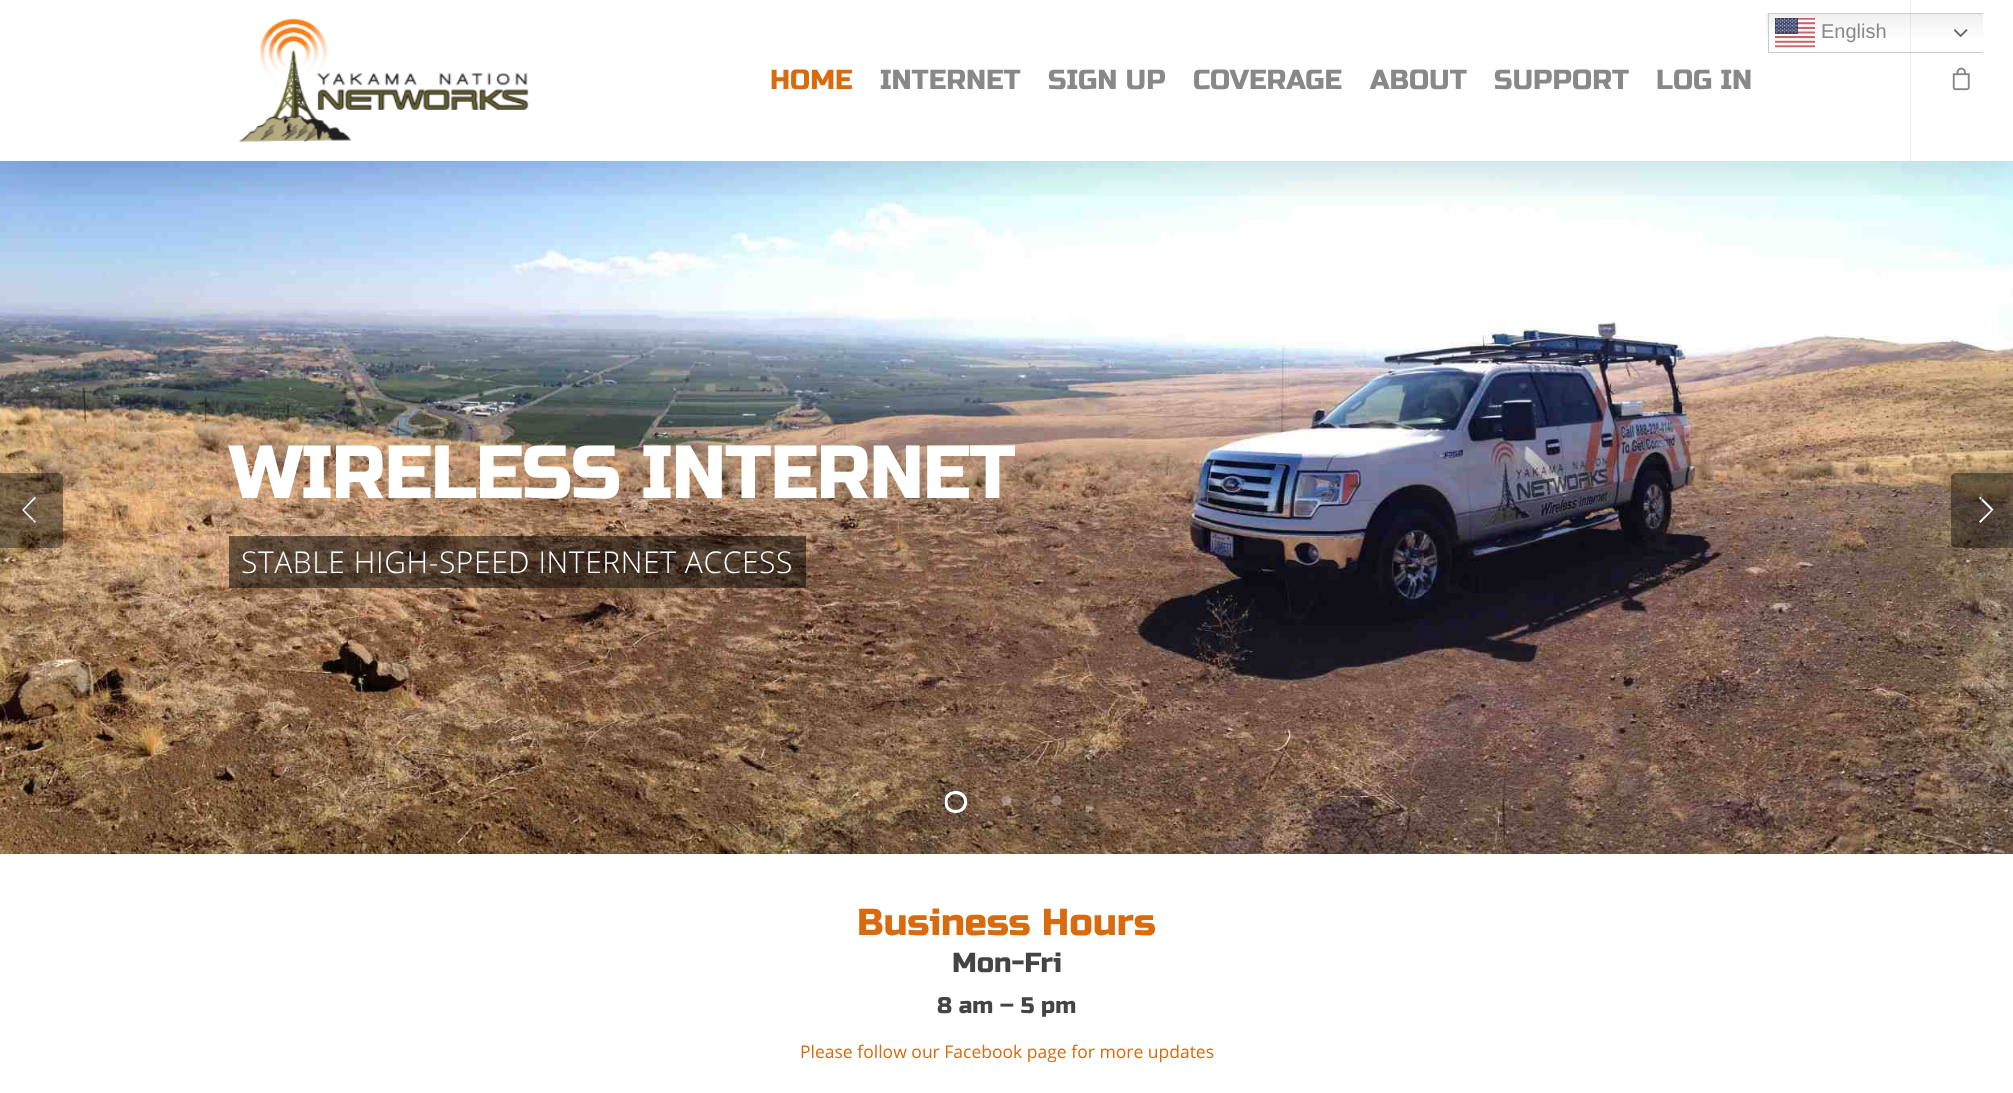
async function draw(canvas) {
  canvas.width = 2013
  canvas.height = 1093
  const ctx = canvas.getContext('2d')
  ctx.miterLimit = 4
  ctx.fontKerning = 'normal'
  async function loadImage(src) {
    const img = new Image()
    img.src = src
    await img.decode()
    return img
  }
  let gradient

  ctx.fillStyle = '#fff'
  ctx.fillRect(0, 0, 2013, 1093)
  ctx.drawImage(await loadImage('image4.png'), 0, 161, 2013, 693)
  ctx.save()
  ctx.beginPath()
  ctx.rect(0, 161, 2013, 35)
  ctx.clip()
  ctx.fillStyle = '#00000026'
  ctx.filter = 'blur(28px)'
  ctx.beginPath()
  ctx.rect(0, 4, 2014, 161)
  ctx.fill()
  ctx.filter = 'none'
  ctx.restore()
  ctx.drawImage(await loadImage('image0.png'), 239, 18, 290, 125)
  gradient = ctx.createLinearGradient(1874, 12, 1874, 53)
  gradient.addColorStop(0, '#efefef')
  gradient.addColorStop(0.7, '#fff')
  ctx.fillStyle = gradient
  ctx.fillRect(1766, 13, 217, 23)
  ctx.save()
  ctx.beginPath()
  ctx.rect(1766, 13, 217, 40)
  ctx.clip()
  ctx.strokeStyle = '#ccc'
  ctx.strokeRect(1768.5, 13.5, 215, 39)
  ctx.restore()
  ctx.drawImage(await loadImage('image1.png'), 1775, 18, 40, 30)
  ctx.font = '20px Liberation Sans'
  ctx.fillStyle = '#888'
  ctx.fillText('English', 1821, 38)
  ctx.drawImage(await loadImage('image2.png'), 1954, 29, 14, 9)
  ctx.font = '27.5px Russo One'
  ctx.fillStyle = '#d96a0d'
  ctx.fillText('HOME', 770, 89)
  ctx.fillStyle = '#888'
  ctx.fillText('INTERNET', 880, 89)
  ctx.fillText('SIGN UP', 1048, 89)
  ctx.fillText('COVERAGE', 1193, 89)
  ctx.fillText('ABOUT', 1370, 89)
  ctx.fillText('SUPPORT', 1494, 89)
  ctx.fillText('LOG IN', 1656, 89)
  ctx.fillStyle = '#00000012'
  ctx.fillRect(1910, 0, 1, 161)
  ctx.drawImage(await loadImage('image3.png'), 1952, 67, 18, 24)
  ctx.letterSpacing = '-1.25px'
  ctx.font = '75px Russo One'
  ctx.fillStyle = '#fff'
  ctx.fillText('WIRELESS INTERNET', 229, 498)
  ctx.fillStyle = '#00000080'
  ctx.fillRect(241, 536, 553, 52)
  ctx.letterSpacing = '0.6px'
  ctx.font = '300 30px Open Sans'
  ctx.fillStyle = '#fff'
  ctx.fillText('STABLE HIGH-SPEED INTERNET ACCESS', 241, 573)
  ctx.fillStyle = '#00000080'
  ctx.beginPath()
  ctx.moveTo(229, 536)
  ctx.lineTo(229, 588)
  ctx.lineTo(781, 588)
  ctx.lineTo(241, 588)
  ctx.lineTo(241, 536)
  ctx.lineTo(781, 536)
  ctx.closePath()
  ctx.fill()
  ctx.beginPath()
  ctx.moveTo(254, 536)
  ctx.lineTo(794, 536)
  ctx.lineTo(794, 588)
  ctx.lineTo(254, 588)
  ctx.lineTo(806, 588)
  ctx.lineTo(806, 536)
  ctx.closePath()
  ctx.fill()
  ctx.fillStyle = '#00000066'
  ctx.beginPath()
  ctx.moveTo(1956, 473)
  ctx.lineTo(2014, 473)
  ctx.lineTo(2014, 548)
  ctx.lineTo(1956, 548)
  ctx.bezierCurveTo(1953, 548, 1951, 546, 1951, 543)
  ctx.lineTo(1951, 478)
  ctx.bezierCurveTo(1951, 475, 1953, 473, 1956, 473)
  ctx.closePath()
  ctx.fill()
  ctx.fillStyle = '#fff'
  ctx.beginPath()
  ctx.moveTo(1979, 498)
  ctx.lineTo(1980.5, 496.5)
  ctx.lineTo(1993.5, 509.5)
  ctx.lineTo(1980.5, 523)
  ctx.lineTo(1979, 521.5)
  ctx.lineTo(1991, 510)
  ctx.closePath()
  ctx.fill()
  ctx.letterSpacing = '0px'
  ctx.font = '12px Open Sans'
  ctx.fillStyle = '#817465'
  ctx.fillText('1', 1978, 502)
  ctx.fillStyle = '#00000066'
  ctx.beginPath()
  ctx.roundRect(0, 473, 63, 75, [0, 5, 5, 0])
  ctx.fill()
  ctx.fillStyle = '#fff'
  ctx.beginPath()
  ctx.moveTo(36, 521.5)
  ctx.lineTo(35, 523)
  ctx.lineTo(22, 510)
  ctx.lineTo(35, 496.5)
  ctx.lineTo(36, 498)
  ctx.lineTo(24, 510)
  ctx.closePath()
  ctx.fill()
  ctx.fillStyle = '#7c6955'
  ctx.fillText('3', 31, 528)
  ctx.save()
  ctx.beginPath()
  ctx.rect(945, 789, 25, 25)
  ctx.clip()
  ctx.beginPath()
  ctx.moveTo(946, 800.5)
  ctx.bezierCurveTo(948, 788, 967.5, 791, 965.5, 803.5)
  ctx.bezierCurveTo(963.5, 816, 944, 813, 946, 800.5)
  ctx.closePath()
  ctx.strokeStyle = '#ffffff4d'
  ctx.lineWidth = 3.1
  ctx.lineCap = 'round'
  ctx.stroke()
  ctx.beginPath()
  ctx.moveTo(946, 800.5)
  ctx.bezierCurveTo(948, 788, 967.5, 791, 965.5, 803.5)
  ctx.bezierCurveTo(963.5, 815, 946, 814, 946, 802.5)
  ctx.strokeStyle = '#fff'
  ctx.stroke()
  ctx.restore()
  ctx.fillStyle = '#ffffff4d'
  ctx.beginPath()
  ctx.arc(1006.5, 800.5, 5, 0, 2 * Math.PI)
  ctx.fill()
  ctx.beginPath()
  ctx.arc(1056.5, 800.5, 5, 0, 2 * Math.PI)
  ctx.fill()
  ctx.font = '37.5px Russo One'
  ctx.fillStyle = '#d96a0d'
  ctx.fillText('Business Hours', 857, 935)
  ctx.font = '27.5px Russo One'
  ctx.fillStyle = '#444'
  ctx.fillText('Mon-Fri', 952, 972)
  ctx.font = '22.5px Russo One'
  ctx.fillText('8 am – 5 pm', 937, 1013)
  ctx.font = '17.5px Open Sans'
  ctx.fillStyle = '#d96a0d'
  ctx.fillText('Please follow our Facebook page for more updates', 800, 1058)
}

draw(document.querySelector('canvas'))
